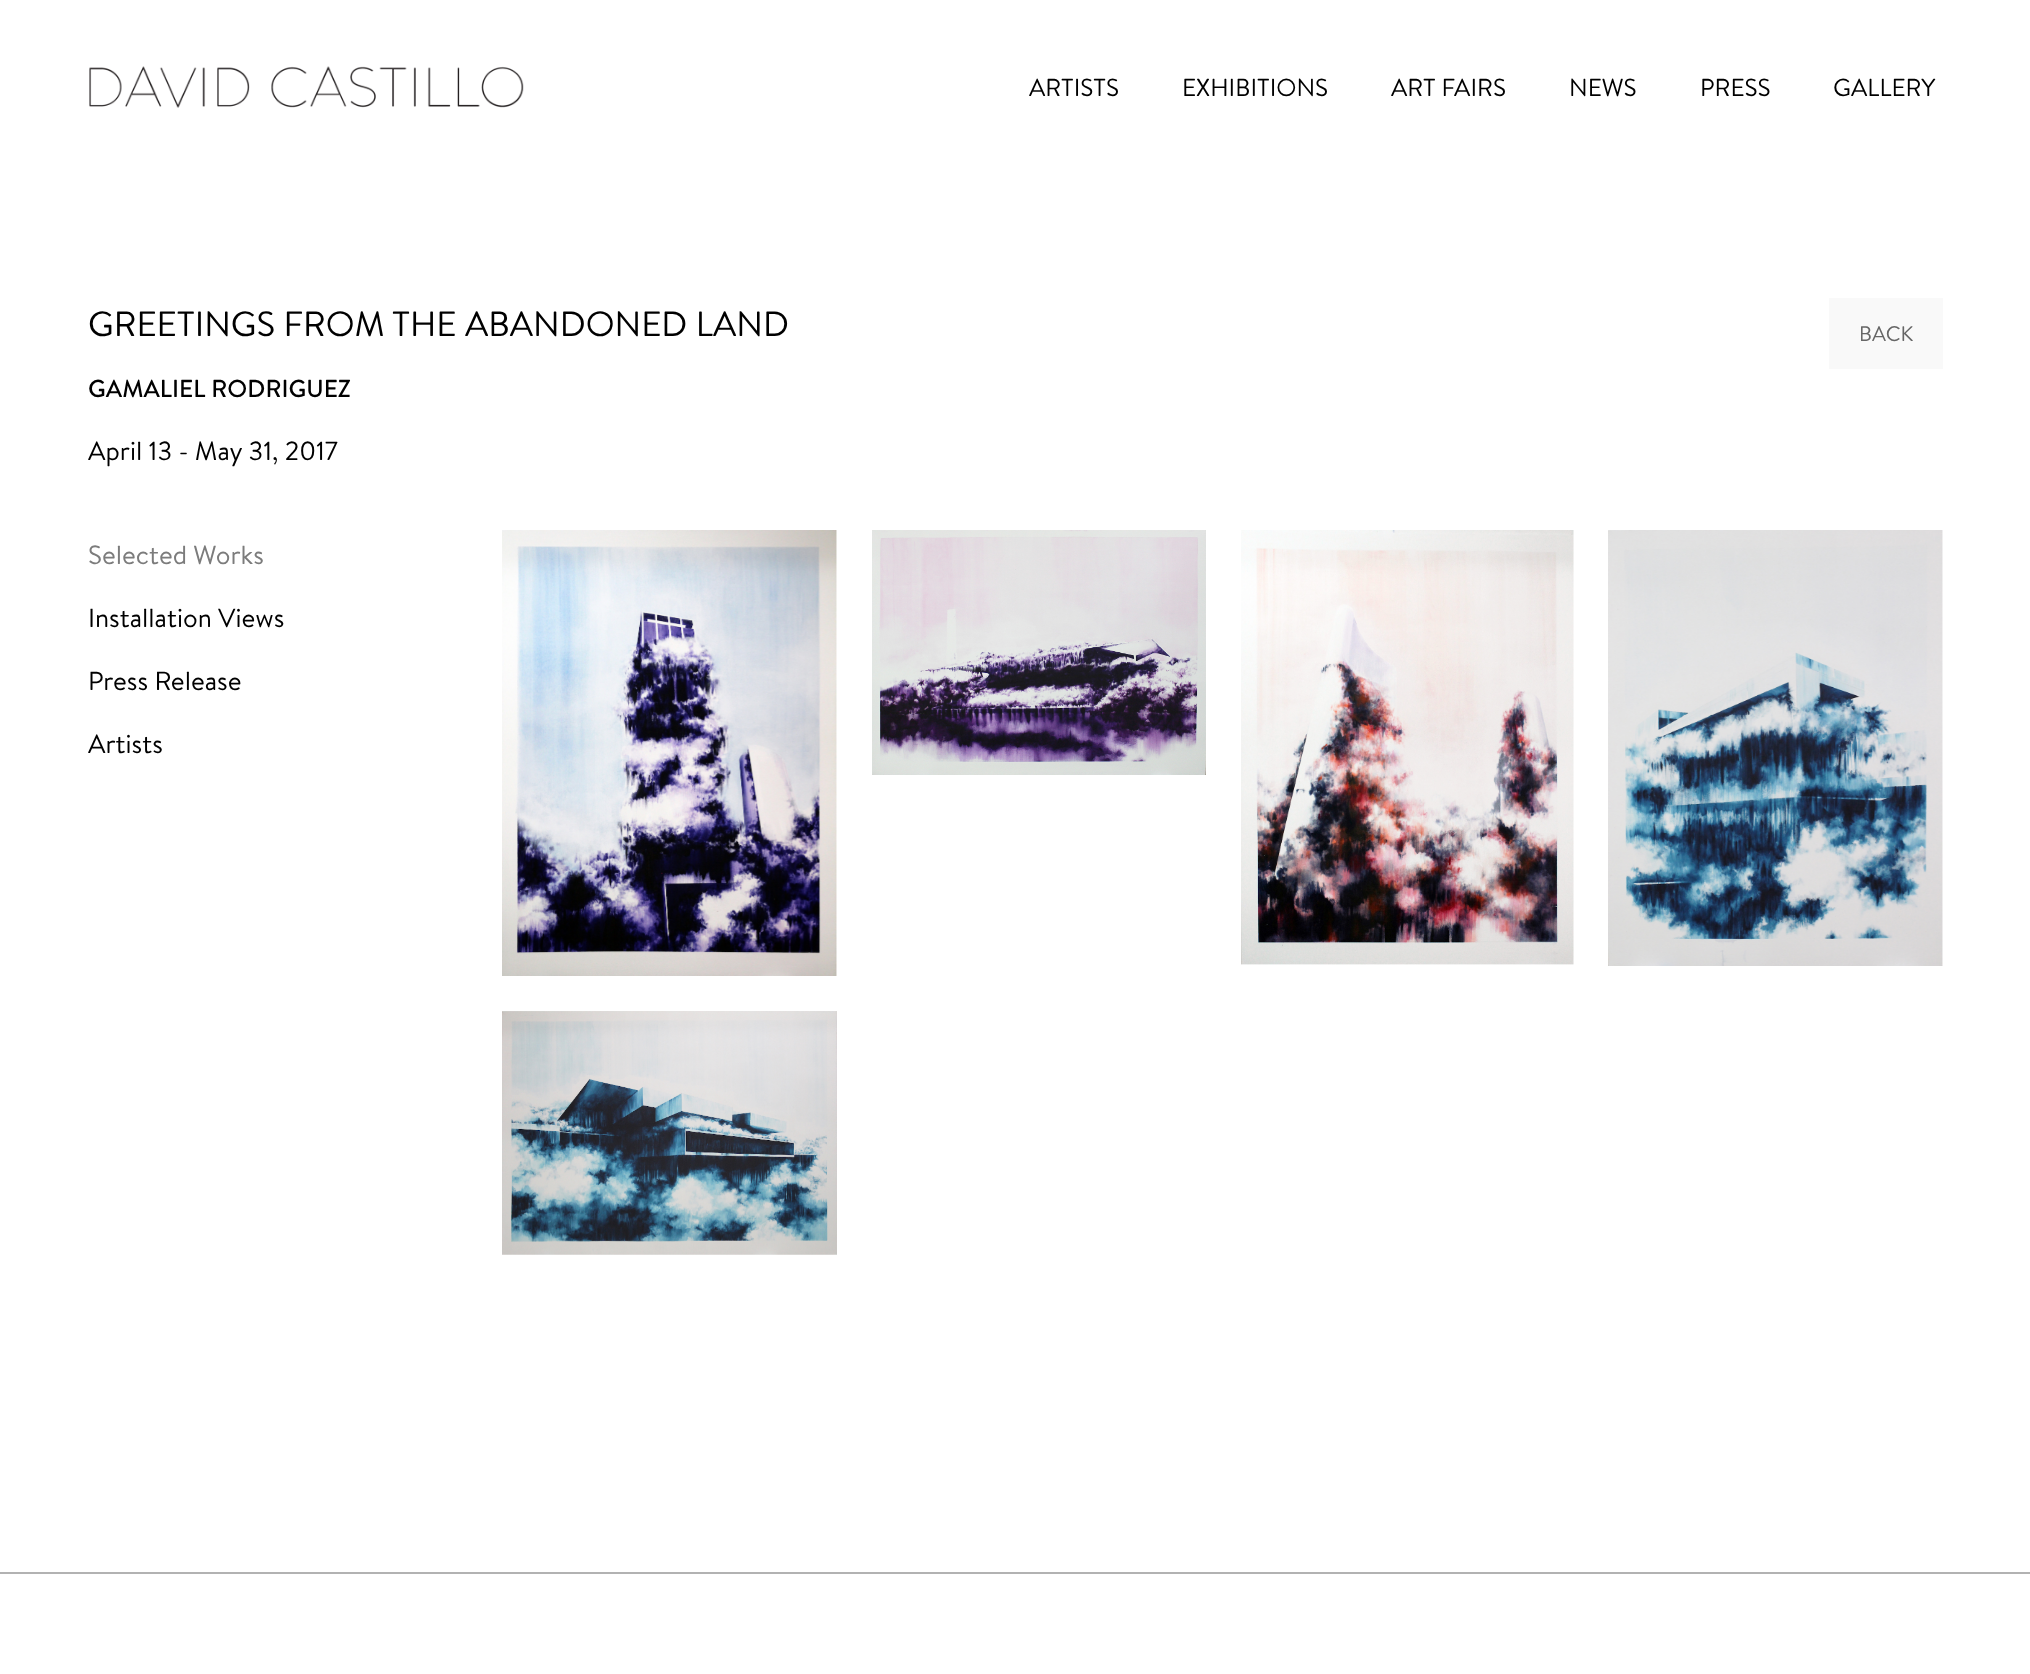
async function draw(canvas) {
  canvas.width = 2030
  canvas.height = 1674
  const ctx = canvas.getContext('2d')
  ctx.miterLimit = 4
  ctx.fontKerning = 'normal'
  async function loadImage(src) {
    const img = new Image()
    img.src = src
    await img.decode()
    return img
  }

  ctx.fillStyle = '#fff'
  ctx.fillRect(0, 0, 2030, 1674)
  ctx.drawImage(await loadImage('image0.png'), 89, 66, 435, 42)
  ctx.font = '24.5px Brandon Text'
  ctx.fillStyle = '#000'
  ctx.fillText('ARTISTS', 1029, 96)
  ctx.fillText('EXHIBITIONS', 1182, 96)
  ctx.fillText('ART FAIRS', 1391, 96)
  ctx.fillText('NEWS', 1569, 96)
  ctx.fillText('PRESS', 1700, 96)
  ctx.fillText('GALLERY', 1833, 96)
  ctx.font = '35px Brandon Text'
  ctx.fillText('GREETINGS FROM THE ABANDONED LAND', 88, 336)
  ctx.font = '500 24.5px Brandon Text'
  ctx.fillText('GAMALIEL RODRIGUEZ', 88, 397)
  ctx.font = '26.25px Brandon Text'
  ctx.fillText('April 13 - May 31, 2017', 88, 460)
  ctx.fillStyle = '#f9f9f9'
  ctx.fillRect(1829, 298, 114, 71)
  ctx.font = '21px Brandon Text'
  ctx.fillStyle = '#666'
  ctx.fillText('BACK', 1859, 341)
  ctx.font = '26.25px Brandon Text'
  ctx.fillStyle = '#7c7c7c'
  ctx.fillText('Selected Works', 88, 564)
  ctx.fillStyle = '#000'
  ctx.fillText('Installation Views', 88, 627)
  ctx.fillText('Press Release', 88, 690)
  ctx.fillText('Artists', 88, 753)
  ctx.drawImage(await loadImage('image1.png'), 502, 530, 335, 446)
  ctx.drawImage(await loadImage('image2.png'), 872, 530, 334, 245)
  ctx.drawImage(await loadImage('image3.png'), 1241, 530, 333, 435)
  ctx.drawImage(await loadImage('image4.png'), 1608, 530, 335, 436)
  ctx.drawImage(await loadImage('image5.png'), 502, 1011, 335, 244)
  ctx.fillStyle = '#b2b2b2'
  ctx.fillRect(0, 1572, 2030, 2)
}

draw(document.querySelector('canvas'))
